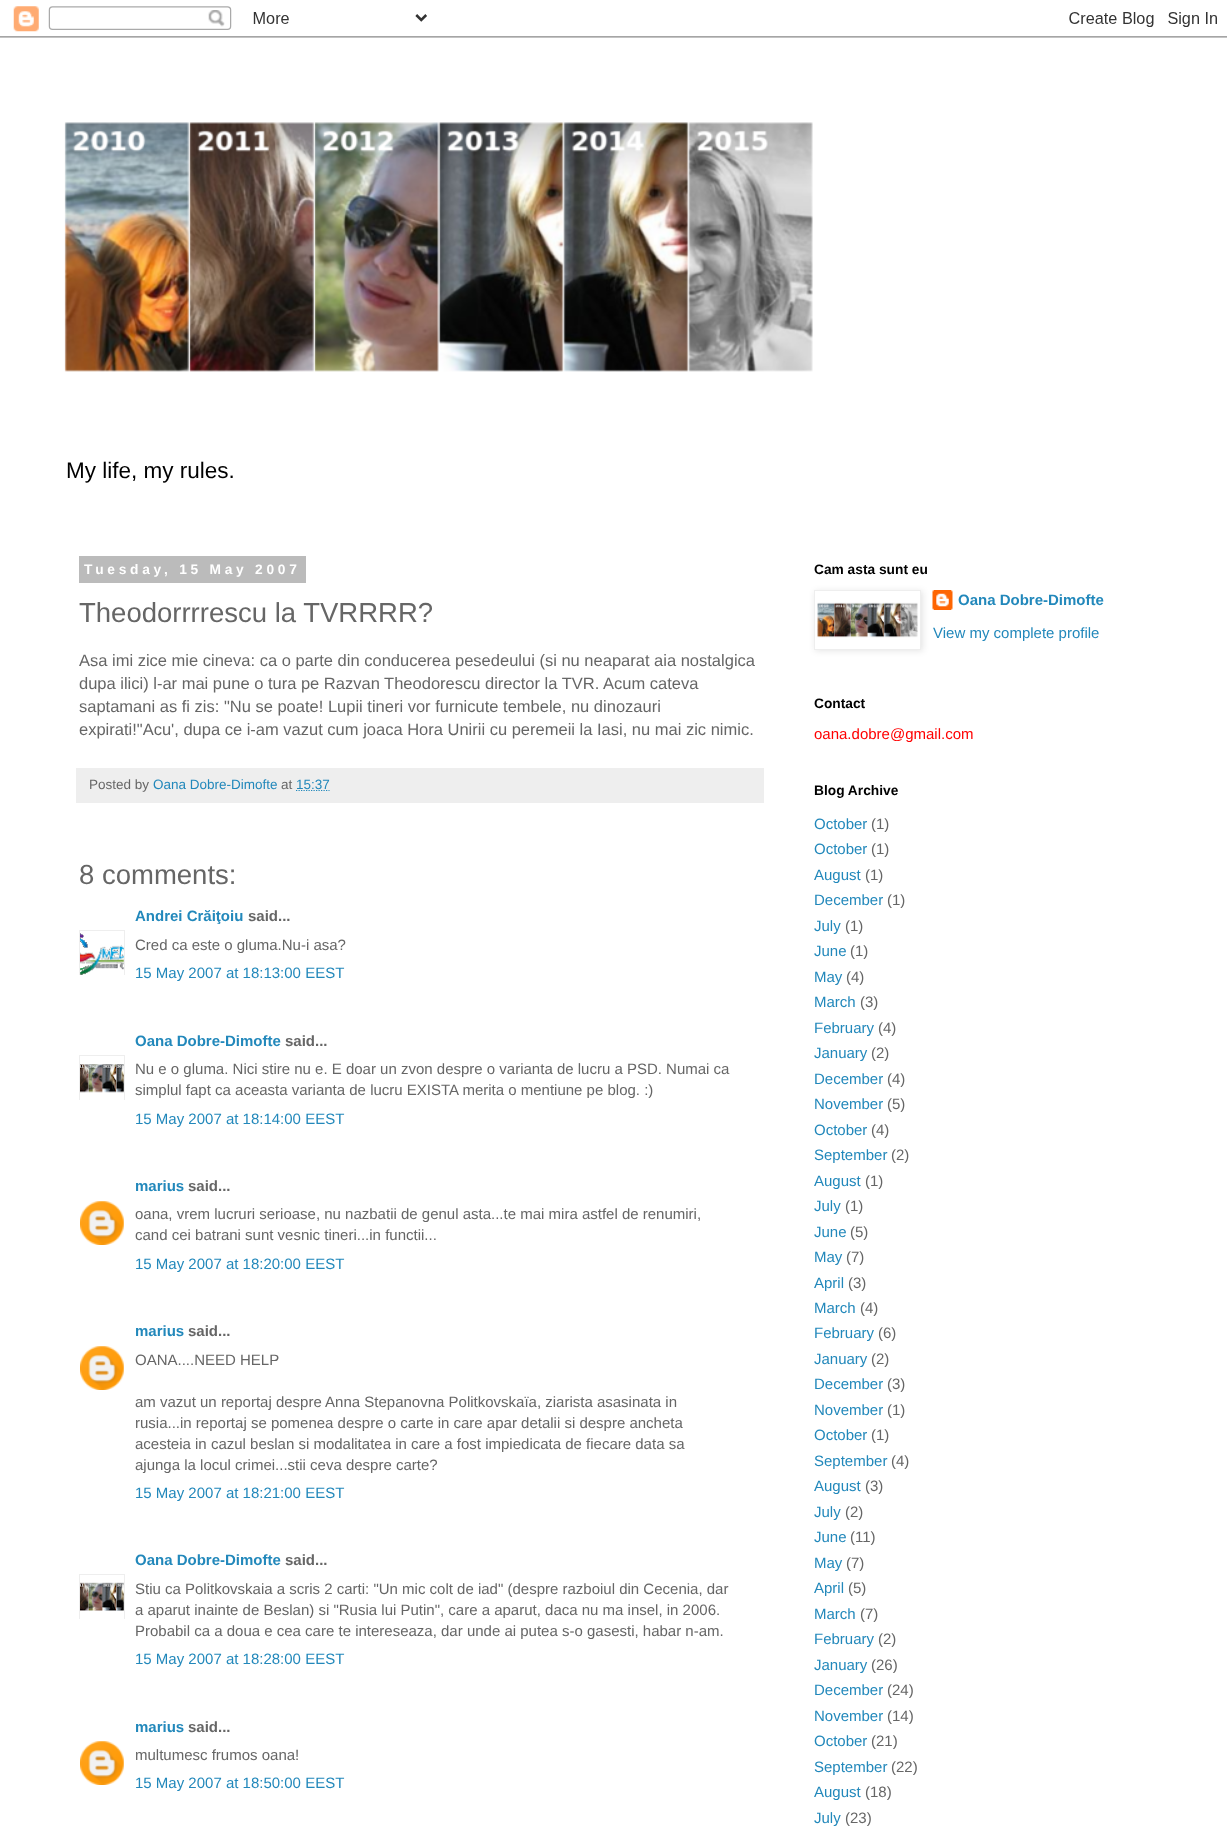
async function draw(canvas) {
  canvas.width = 1227
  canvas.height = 1843
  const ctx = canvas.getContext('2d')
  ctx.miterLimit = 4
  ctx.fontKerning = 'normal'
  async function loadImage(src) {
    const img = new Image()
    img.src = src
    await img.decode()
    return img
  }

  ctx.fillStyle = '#fff'
  ctx.fillRect(0, 0, 1227, 1843)
  ctx.drawImage(await loadImage('image0.png'), 0, 6, 1227, 32)
  ctx.drawImage(await loadImage('image1.png'), 64, 122, 749, 250)
  ctx.font = '22.5px Liberation Sans'
  ctx.fillStyle = '#000'
  ctx.fillText('My life, my rules.', 66, 478)
  ctx.fillStyle = '#bbb'
  ctx.fillRect(79, 556, 227, 27)
  ctx.letterSpacing = '3.75px'
  ctx.font = 'bold 13.75px Liberation Sans'
  ctx.fillStyle = '#fff'
  ctx.fillText('Tuesday, 15 May 2007', 84, 574)
  ctx.letterSpacing = '0px'
  ctx.font = '27.5px Liberation Sans'
  ctx.fillStyle = '#666'
  ctx.fillText('Theodorrrrescu la TVRRRR?', 79, 622)
  ctx.font = '16.5px Liberation Sans'
  ctx.fillText('Asa imi zice mie cineva: ca o parte din conducerea pesedeului (si nu neaparat aia nostalgica', 79, 666)
  ctx.fillText('dupa ilici) l-ar mai pune o tura pe Razvan Theodorescu director la TVR. Acum cateva', 79, 689)
  ctx.fillText('saptamani as fi zis: "Nu se poate! Lupii tineri vor furnicute tembele, nu dinozauri', 79, 712)
  ctx.fillText('expirati!"Acu\', dupa ce i-am vazut cum joaca Hora Unirii cu peremeii la Iasi, nu mai zic nimic.', 79, 735)
  ctx.fillStyle = '#eee'
  ctx.fillRect(76, 768, 688, 35)
  ctx.font = '13.5px Liberation Sans'
  ctx.fillStyle = '#666'
  ctx.fillText('Posted by', 89, 789)
  ctx.fillStyle = '#28b'
  ctx.fillText('Oana Dobre-Dimofte', 153, 789)
  ctx.fillStyle = '#666'
  ctx.fillText('at', 281, 789)
  ctx.beginPath()
  ctx.moveTo(296, 790.5)
  ctx.lineTo(329.5, 790.5)
  ctx.strokeStyle = '#28b'
  ctx.lineWidth = 1.2
  ctx.setLineDash([1.25, 1.25])
  ctx.stroke()
  ctx.fillStyle = '#28b'
  ctx.fillText('15:37', 296, 789)
  ctx.font = '27.5px Liberation Sans'
  ctx.fillStyle = '#666'
  ctx.fillText('8 comments:', 79, 884)
  ctx.font = 'bold 15px Liberation Sans'
  ctx.fillStyle = '#28b'
  ctx.fillText('Andrei Crăiţoiu', 135, 921)
  ctx.fillStyle = '#666'
  ctx.fillText('said...', 248, 921)
  ctx.save()
  ctx.beginPath()
  ctx.rect(79, 930, 46, 45)
  ctx.clip()
  ctx.strokeStyle = '#eee'
  ctx.lineWidth = 1
  ctx.setLineDash([])
  ctx.strokeRect(79.5, 930.5, 45, 45)
  ctx.restore()
  ctx.drawImage(await loadImage('image2.png'), 80, 933, 44, 42)
  ctx.font = '15px Liberation Sans'
  ctx.fillText('Cred ca este o gluma.Nu-i asa?', 135, 950)
  ctx.fillStyle = '#28b'
  ctx.fillText('15 May 2007 at 18:13:00 EEST', 135, 978)
  ctx.font = 'bold 15px Liberation Sans'
  ctx.fillText('Oana Dobre-Dimofte', 135, 1046)
  ctx.fillStyle = '#666'
  ctx.fillText('said...', 285, 1046)
  ctx.save()
  ctx.beginPath()
  ctx.rect(79, 1055, 46, 45)
  ctx.clip()
  ctx.strokeStyle = '#eee'
  ctx.lineWidth = 1
  ctx.setLineDash([])
  ctx.strokeRect(79.5, 1055.5, 45, 45)
  ctx.restore()
  ctx.drawImage(await loadImage('image3.png'), 80, 1064, 44, 29)
  ctx.font = '15px Liberation Sans'
  ctx.fillText('Nu e o gluma. Nici stire nu e. E doar un zvon despre o varianta de lucru a PSD. Numai ca', 135, 1074)
  ctx.fillText('simplul fapt ca aceasta varianta de lucru EXISTA merita o mentiune pe blog. :)', 135, 1095)
  ctx.fillStyle = '#28b'
  ctx.fillText('15 May 2007 at 18:14:00 EEST', 135, 1124)
  ctx.font = 'bold 15px Liberation Sans'
  ctx.fillText('marius', 135, 1191)
  ctx.fillStyle = '#666'
  ctx.fillText('said...', 188, 1191)
  ctx.drawImage(await loadImage('image4.png'), 80, 1201, 44, 44)
  ctx.font = '15px Liberation Sans'
  ctx.fillText('oana, vrem lucruri serioase, nu nazbatii de genul asta...te mai mira astfel de renumiri,', 135, 1219)
  ctx.fillText('cand cei batrani sunt vesnic tineri...in functii...', 135, 1240)
  ctx.fillStyle = '#28b'
  ctx.fillText('15 May 2007 at 18:20:00 EEST', 135, 1269)
  ctx.font = 'bold 15px Liberation Sans'
  ctx.fillText('marius', 135, 1336)
  ctx.fillStyle = '#666'
  ctx.fillText('said...', 188, 1336)
  ctx.drawImage(await loadImage('image4.png'), 80, 1346, 44, 44)
  ctx.font = '15px Liberation Sans'
  ctx.fillText('OANA....NEED HELP', 135, 1365)
  ctx.fillText('am vazut un reportaj despre Anna Stepanovna Politkovskaïa, ziarista asasinata in', 135, 1407)
  ctx.fillText('rusia...in reportaj se pomenea despre o carte in care apar detalii si despre ancheta', 135, 1428)
  ctx.fillText('acesteia in cazul beslan si modalitatea in care a fost impiedicata de fiecare data sa', 135, 1449)
  ctx.fillText('ajunga la locul crimei...stii ceva despre carte?', 135, 1470)
  ctx.fillStyle = '#28b'
  ctx.fillText('15 May 2007 at 18:21:00 EEST', 135, 1498)
  ctx.font = 'bold 15px Liberation Sans'
  ctx.fillText('Oana Dobre-Dimofte', 135, 1565)
  ctx.fillStyle = '#666'
  ctx.fillText('said...', 285, 1565)
  ctx.save()
  ctx.beginPath()
  ctx.rect(79, 1574, 46, 45)
  ctx.clip()
  ctx.strokeStyle = '#eee'
  ctx.lineWidth = 1
  ctx.setLineDash([])
  ctx.strokeRect(79.5, 1574.5, 45, 45)
  ctx.restore()
  ctx.drawImage(await loadImage('image5.png'), 80, 1582, 44, 29)
  ctx.font = '15px Liberation Sans'
  ctx.fillText('Stiu ca Politkovskaia a scris 2 carti: "Un mic colt de iad" (despre razboiul din Cecenia, dar', 135, 1594)
  ctx.fillText('a aparut inainte de Beslan) si "Rusia lui Putin", care a aparut, daca nu ma insel, in 2006.', 135, 1615)
  ctx.fillText('Probabil ca a doua e cea care te intereseaza, dar unde ai putea s-o gasesti, habar n-am.', 135, 1636)
  ctx.fillStyle = '#28b'
  ctx.fillText('15 May 2007 at 18:28:00 EEST', 135, 1664)
  ctx.font = 'bold 15px Liberation Sans'
  ctx.fillText('marius', 135, 1732)
  ctx.fillStyle = '#666'
  ctx.fillText('said...', 188, 1732)
  ctx.drawImage(await loadImage('image4.png'), 80, 1741, 44, 44)
  ctx.font = '15px Liberation Sans'
  ctx.fillText('multumesc frumos oana!', 135, 1760)
  ctx.fillStyle = '#28b'
  ctx.fillText('15 May 2007 at 18:50:00 EEST', 135, 1788)
  ctx.font = 'bold 13.75px Liberation Sans'
  ctx.fillStyle = '#000'
  ctx.fillText('Cam asta sunt eu', 814, 574)
  ctx.drawImage(await loadImage('image7.png'), 932, 590, 21, 20)
  ctx.save()
  ctx.beginPath()
  ctx.moveTo(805, 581)
  ctx.lineTo(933, 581)
  ctx.lineTo(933, 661)
  ctx.lineTo(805, 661)
  ctx.closePath()
  ctx.moveTo(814, 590)
  ctx.lineTo(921, 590)
  ctx.lineTo(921, 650)
  ctx.lineTo(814, 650)
  ctx.closePath()
  ctx.clip('evenodd')
  ctx.fillStyle = '#0000001a'
  ctx.filter = 'blur(3px)'
  ctx.beginPath()
  ctx.rect(815, 591, 108, 60)
  ctx.fill()
  ctx.filter = 'none'
  ctx.restore()
  ctx.strokeStyle = '#eee'
  ctx.lineWidth = 1
  ctx.setLineDash([])
  ctx.strokeRect(814.5, 590.5, 106, 59)
  ctx.drawImage(await loadImage('image6.png'), 817, 602, 101, 36)
  ctx.font = 'bold 15px Liberation Sans'
  ctx.fillStyle = '#28b'
  ctx.fillText('Oana Dobre-Dimofte', 958, 605)
  ctx.font = '15px Liberation Sans'
  ctx.fillText('View my complete profile', 933, 638)
  ctx.font = 'bold 13.75px Liberation Sans'
  ctx.fillStyle = '#000'
  ctx.fillText('Contact', 814, 708)
  ctx.font = '15px Liberation Sans'
  ctx.fillStyle = '#f00'
  ctx.fillText('oana.dobre@gmail.com', 814, 739)
  ctx.font = 'bold 13.75px Liberation Sans'
  ctx.fillStyle = '#000'
  ctx.fillText('Blog Archive', 814, 795)
  ctx.font = '15px Liberation Sans'
  ctx.fillStyle = '#28b'
  ctx.fillText('October', 814, 829)
  ctx.fillStyle = '#666'
  ctx.fillText('(1)', 871, 829)
  ctx.fillStyle = '#28b'
  ctx.fillText('October', 814, 854)
  ctx.fillStyle = '#666'
  ctx.fillText('(1)', 871, 854)
  ctx.fillStyle = '#28b'
  ctx.fillText('August', 814, 880)
  ctx.fillStyle = '#666'
  ctx.fillText('(1)', 865, 880)
  ctx.fillStyle = '#28b'
  ctx.fillText('December', 814, 905)
  ctx.fillStyle = '#666'
  ctx.fillText('(1)', 887, 905)
  ctx.fillStyle = '#28b'
  ctx.fillText('July', 814, 931)
  ctx.fillStyle = '#666'
  ctx.fillText('(1)', 845, 931)
  ctx.fillStyle = '#28b'
  ctx.fillText('June', 814, 956)
  ctx.fillStyle = '#666'
  ctx.fillText('(1)', 850, 956)
  ctx.fillStyle = '#28b'
  ctx.fillText('May', 814, 982)
  ctx.fillStyle = '#666'
  ctx.fillText('(4)', 846, 982)
  ctx.fillStyle = '#28b'
  ctx.fillText('March', 814, 1007)
  ctx.fillStyle = '#666'
  ctx.fillText('(3)', 860, 1007)
  ctx.fillStyle = '#28b'
  ctx.fillText('February', 814, 1033)
  ctx.fillStyle = '#666'
  ctx.fillText('(4)', 878, 1033)
  ctx.fillStyle = '#28b'
  ctx.fillText('January', 814, 1058)
  ctx.fillStyle = '#666'
  ctx.fillText('(2)', 871, 1058)
  ctx.fillStyle = '#28b'
  ctx.fillText('December', 814, 1084)
  ctx.fillStyle = '#666'
  ctx.fillText('(4)', 887, 1084)
  ctx.fillStyle = '#28b'
  ctx.fillText('November', 814, 1109)
  ctx.fillStyle = '#666'
  ctx.fillText('(5)', 887, 1109)
  ctx.fillStyle = '#28b'
  ctx.fillText('October', 814, 1135)
  ctx.fillStyle = '#666'
  ctx.fillText('(4)', 871, 1135)
  ctx.fillStyle = '#28b'
  ctx.fillText('September', 814, 1160)
  ctx.fillStyle = '#666'
  ctx.fillText('(2)', 891, 1160)
  ctx.fillStyle = '#28b'
  ctx.fillText('August', 814, 1186)
  ctx.fillStyle = '#666'
  ctx.fillText('(1)', 865, 1186)
  ctx.fillStyle = '#28b'
  ctx.fillText('July', 814, 1211)
  ctx.fillStyle = '#666'
  ctx.fillText('(1)', 845, 1211)
  ctx.fillStyle = '#28b'
  ctx.fillText('June', 814, 1237)
  ctx.fillStyle = '#666'
  ctx.fillText('(5)', 850, 1237)
  ctx.fillStyle = '#28b'
  ctx.fillText('May', 814, 1262)
  ctx.fillStyle = '#666'
  ctx.fillText('(7)', 846, 1262)
  ctx.fillStyle = '#28b'
  ctx.fillText('April', 814, 1288)
  ctx.fillStyle = '#666'
  ctx.fillText('(3)', 848, 1288)
  ctx.fillStyle = '#28b'
  ctx.fillText('March', 814, 1313)
  ctx.fillStyle = '#666'
  ctx.fillText('(4)', 860, 1313)
  ctx.fillStyle = '#28b'
  ctx.fillText('February', 814, 1338)
  ctx.fillStyle = '#666'
  ctx.fillText('(6)', 878, 1338)
  ctx.fillStyle = '#28b'
  ctx.fillText('January', 814, 1364)
  ctx.fillStyle = '#666'
  ctx.fillText('(2)', 871, 1364)
  ctx.fillStyle = '#28b'
  ctx.fillText('December', 814, 1389)
  ctx.fillStyle = '#666'
  ctx.fillText('(3)', 887, 1389)
  ctx.fillStyle = '#28b'
  ctx.fillText('November', 814, 1415)
  ctx.fillStyle = '#666'
  ctx.fillText('(1)', 887, 1415)
  ctx.fillStyle = '#28b'
  ctx.fillText('October', 814, 1440)
  ctx.fillStyle = '#666'
  ctx.fillText('(1)', 871, 1440)
  ctx.fillStyle = '#28b'
  ctx.fillText('September', 814, 1466)
  ctx.fillStyle = '#666'
  ctx.fillText('(4)', 891, 1466)
  ctx.fillStyle = '#28b'
  ctx.fillText('August', 814, 1491)
  ctx.fillStyle = '#666'
  ctx.fillText('(3)', 865, 1491)
  ctx.fillStyle = '#28b'
  ctx.fillText('July', 814, 1517)
  ctx.fillStyle = '#666'
  ctx.fillText('(2)', 845, 1517)
  ctx.fillStyle = '#28b'
  ctx.fillText('June', 814, 1542)
  ctx.fillStyle = '#666'
  ctx.fillText('(11)', 850, 1542)
  ctx.fillStyle = '#28b'
  ctx.fillText('May', 814, 1568)
  ctx.fillStyle = '#666'
  ctx.fillText('(7)', 846, 1568)
  ctx.fillStyle = '#28b'
  ctx.fillText('April', 814, 1593)
  ctx.fillStyle = '#666'
  ctx.fillText('(5)', 848, 1593)
  ctx.fillStyle = '#28b'
  ctx.fillText('March', 814, 1619)
  ctx.fillStyle = '#666'
  ctx.fillText('(7)', 860, 1619)
  ctx.fillStyle = '#28b'
  ctx.fillText('February', 814, 1644)
  ctx.fillStyle = '#666'
  ctx.fillText('(2)', 878, 1644)
  ctx.fillStyle = '#28b'
  ctx.fillText('January', 814, 1670)
  ctx.fillStyle = '#666'
  ctx.fillText('(26)', 871, 1670)
  ctx.fillStyle = '#28b'
  ctx.fillText('December', 814, 1695)
  ctx.fillStyle = '#666'
  ctx.fillText('(24)', 887, 1695)
  ctx.fillStyle = '#28b'
  ctx.fillText('November', 814, 1721)
  ctx.fillStyle = '#666'
  ctx.fillText('(14)', 887, 1721)
  ctx.fillStyle = '#28b'
  ctx.fillText('October', 814, 1746)
  ctx.fillStyle = '#666'
  ctx.fillText('(21)', 871, 1746)
  ctx.fillStyle = '#28b'
  ctx.fillText('September', 814, 1772)
  ctx.fillStyle = '#666'
  ctx.fillText('(22)', 891, 1772)
  ctx.fillStyle = '#28b'
  ctx.fillText('August', 814, 1797)
  ctx.fillStyle = '#666'
  ctx.fillText('(18)', 865, 1797)
  ctx.fillStyle = '#28b'
  ctx.fillText('July', 814, 1823)
  ctx.fillStyle = '#666'
  ctx.fillText('(23)', 845, 1823)
}

draw(document.querySelector('canvas'))
